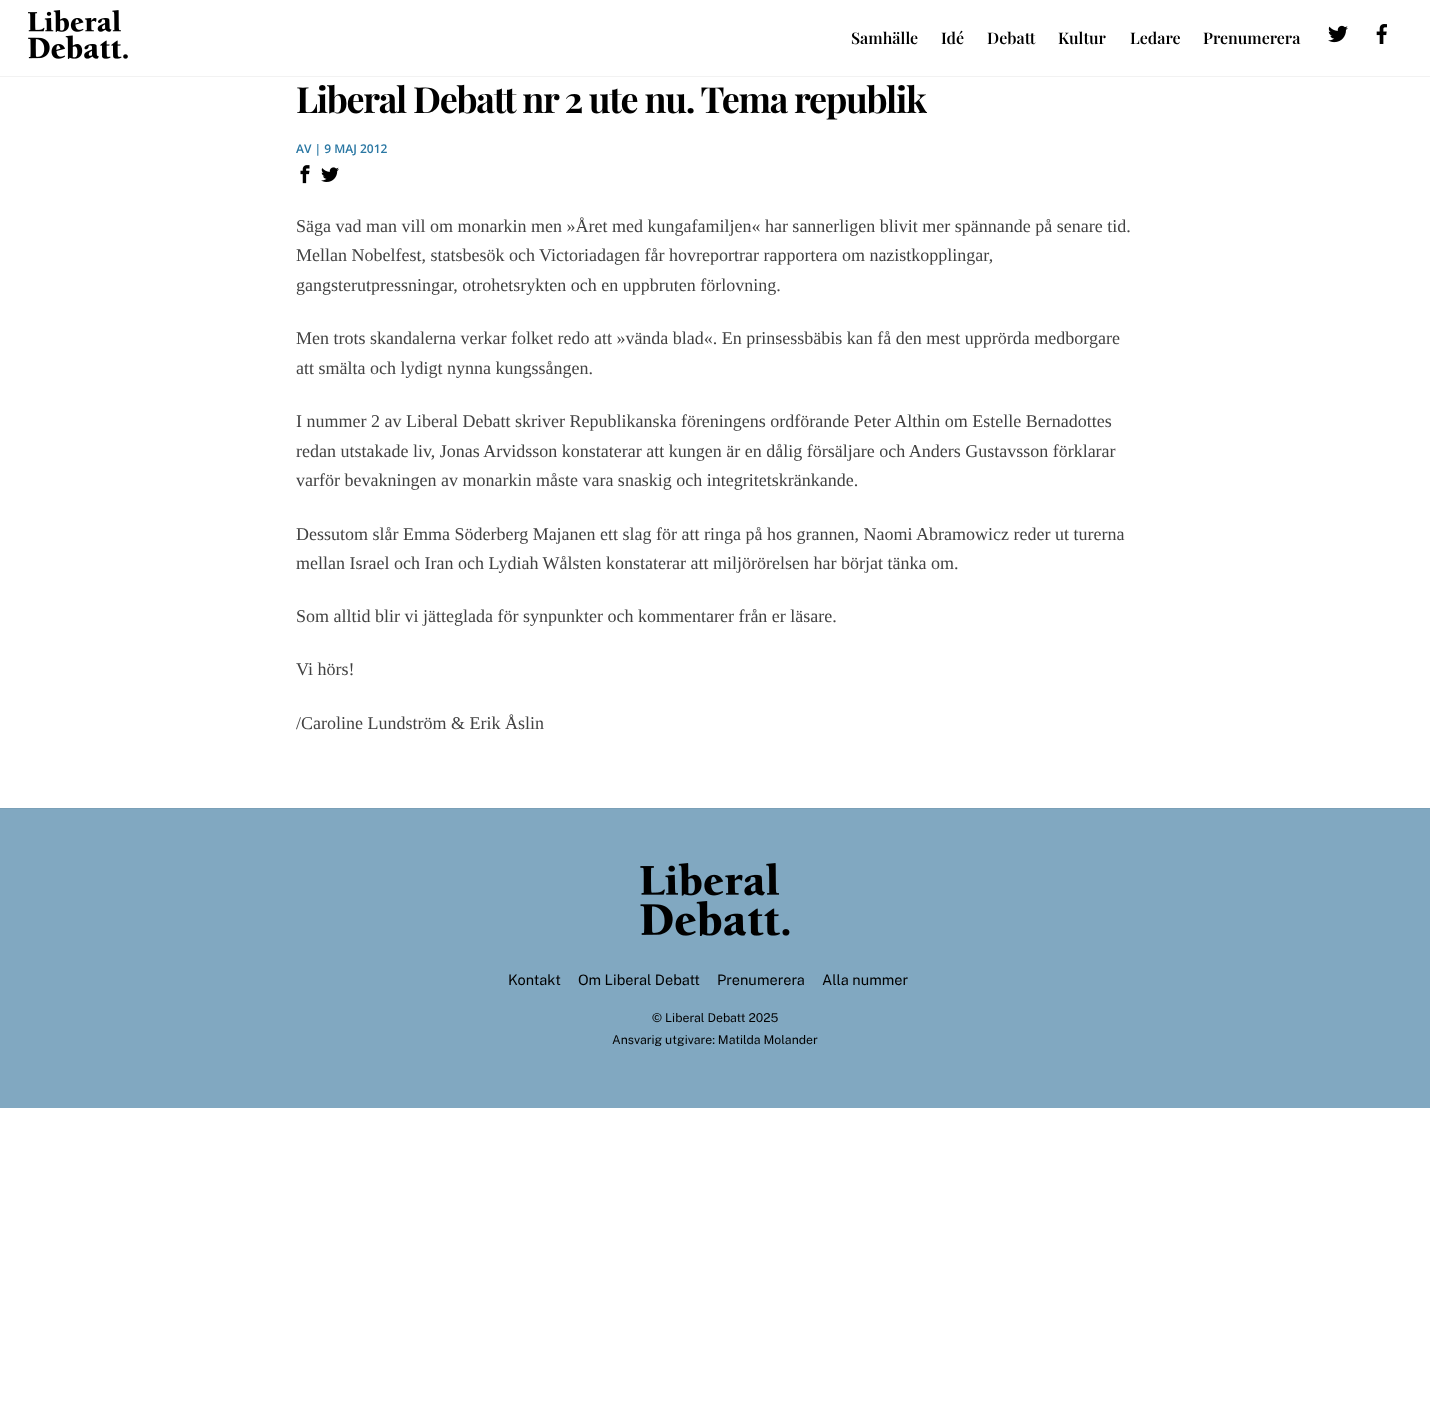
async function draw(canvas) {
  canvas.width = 1430
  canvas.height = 1414
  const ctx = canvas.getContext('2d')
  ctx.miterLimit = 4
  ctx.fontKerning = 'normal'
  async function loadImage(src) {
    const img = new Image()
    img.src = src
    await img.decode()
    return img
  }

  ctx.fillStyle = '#fff'
  ctx.fillRect(0, 0, 1430, 1414)
  ctx.fillStyle = '#f2f2f2'
  ctx.fillRect(0, 76, 1430, 1)
  ctx.drawImage(await loadImage('image0.png'), 28, 10, 100, 49)
  ctx.font = '600 16px Playfair Display'
  ctx.fillStyle = '#000'
  ctx.fillText('Samhälle', 851, 44)
  ctx.fillText('Idé', 941, 44)
  ctx.fillText('Debatt', 987, 44)
  ctx.fillText('Kultur', 1058, 44)
  ctx.fillText('Ledare', 1130, 44)
  ctx.fillText('Prenumerera', 1203, 44)
  ctx.drawImage(await loadImage('image1.png'), 1328, 25, 20, 18)
  ctx.drawImage(await loadImage('image2.png'), 1376, 24, 11, 20)
  ctx.letterSpacing = '-1.3px'
  ctx.font = 'bold 36px Playfair Display'
  ctx.fillText('Liberal Debatt nr 2 ute nu. Tema republik', 296, 113)
  ctx.letterSpacing = '0px'
  ctx.font = '600 12px Open Sans'
  ctx.fillStyle = '#2a77a3'
  ctx.fillText('AV | 9 MAJ 2012', 296, 153)
  ctx.drawImage(await loadImage('image3.png'), 300, 165, 10, 19)
  ctx.drawImage(await loadImage('image4.png'), 321, 167, 18, 15)
  ctx.font = '18px Liberation Serif'
  ctx.fillStyle = '#424242'
  ctx.fillText('Säga vad man vill om monarkin men »Året med kungafamiljen« har sannerligen blivit mer spännande på senare tid.', 296, 232)
  ctx.fillText('Mellan Nobelfest, statsbesök och Victoriadagen får hovreportrar rapportera om nazistkopplingar,', 296, 261)
  ctx.fillText('gangsterutpressningar, otrohetsrykten och en uppbruten förlovning.', 296, 291)
  ctx.fillText('Men trots skandalerna verkar folket redo att »vända blad«. En prinsessbäbis kan få den mest upprörda medborgare', 296, 344)
  ctx.fillText('att smälta och lydigt nynna kungssången.', 296, 374)
  ctx.fillText('I nummer 2 av Liberal Debatt skriver Republikanska föreningens ordförande Peter Althin om Estelle Bernadottes', 296, 427)
  ctx.fillText('redan utstakade liv, Jonas Arvidsson konstaterar att kungen är en dålig försäljare och Anders Gustavsson förklarar', 296, 457)
  ctx.fillText('varför bevakningen av monarkin måste vara snaskig och integritetskränkande.', 296, 486)
  ctx.fillText('Dessutom slår Emma Söderberg Majanen ett slag för att ringa på hos grannen, Naomi Abramowicz reder ut turerna', 296, 540)
  ctx.fillText('mellan Israel och Iran och Lydiah Wålsten konstaterar att miljörörelsen har börjat tänka om.', 296, 569)
  ctx.fillText('Som alltid blir vi jätteglada för synpunkter och kommentarer från er läsare.', 296, 622)
  ctx.fillText('Vi hörs!', 296, 675)
  ctx.fillText('/Caroline Lundström & Erik Åslin', 296, 729)
  ctx.fillStyle = '#81a8c1'
  ctx.fillRect(0, 809, 1430, 299)
  ctx.fillStyle = '#7ba0b7'
  ctx.fillRect(0, 808, 1430, 1)
  ctx.drawImage(await loadImage('image5.png'), 640, 863, 150, 73)
  ctx.font = '14.5px Public Sans'
  ctx.fillStyle = '#000'
  ctx.fillText('Kontakt', 508, 985)
  ctx.fillText('Om Liberal Debatt', 578, 985)
  ctx.fillText('Prenumerera', 717, 985)
  ctx.fillText('Alla nummer', 822, 985)
  ctx.font = '12.25px Public Sans'
  ctx.fillText('© Liberal Debatt 2025', 652, 1022)
  ctx.fillText('Ansvarig utgivare: Matilda Molander', 612, 1044)
}

draw(document.querySelector('canvas'))
